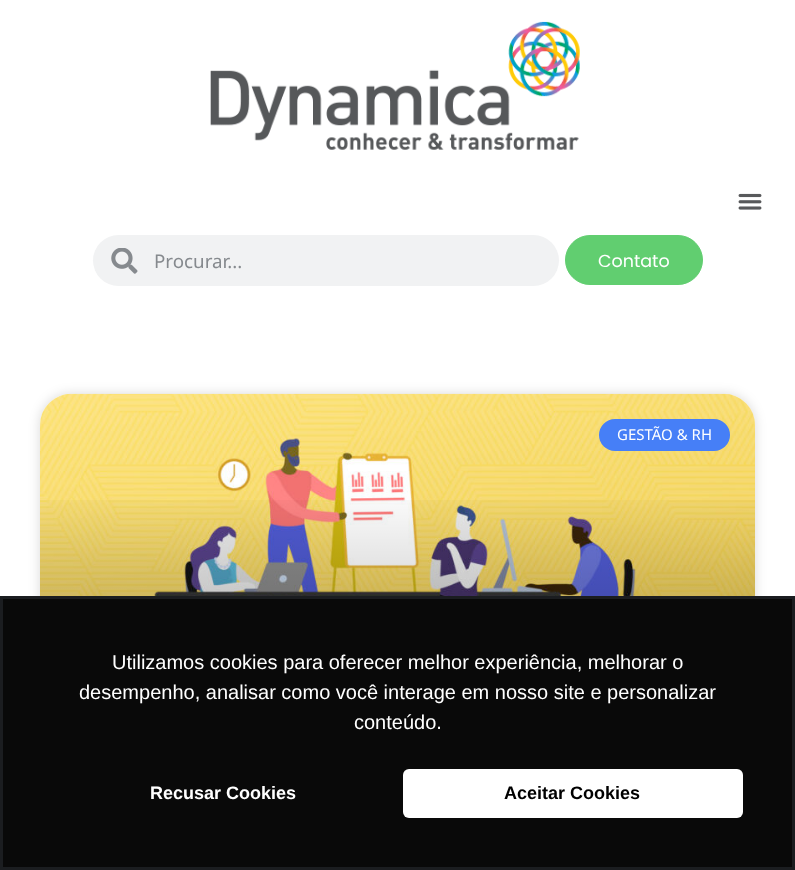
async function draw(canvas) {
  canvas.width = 795
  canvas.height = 870
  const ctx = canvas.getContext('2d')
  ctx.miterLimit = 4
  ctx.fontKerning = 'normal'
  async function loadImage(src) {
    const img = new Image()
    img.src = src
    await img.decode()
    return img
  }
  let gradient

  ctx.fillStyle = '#fff'
  ctx.fillRect(0, 0, 795, 870)
  ctx.drawImage(await loadImage('image0.png'), 210, 21, 370, 129)
  ctx.drawImage(await loadImage('image1.png'), 738, 193, 24, 17)
  ctx.fillStyle = '#f1f2f3'
  ctx.beginPath()
  ctx.roundRect(93, 235, 466, 51, 25.5)
  ctx.fill()
  ctx.drawImage(await loadImage('image2.png'), 111, 248, 27, 26)
  ctx.font = '18.75px Noto Sans'
  ctx.fillStyle = '#868a8e'
  ctx.fillText('Procurar...', 154, 268)
  ctx.fillStyle = '#61ce70'
  ctx.beginPath()
  ctx.roundRect(565.5, 235.5, 137, 49, 24.5)
  ctx.fill()
  ctx.strokeStyle = '#61ce70'
  ctx.stroke()
  ctx.font = '17.5px Poppins'
  ctx.fillStyle = '#fff'
  ctx.fillText('Contato', 598, 267)
  ctx.fillStyle = '#00000026'
  ctx.filter = 'blur(6px)'
  ctx.beginPath()
  ctx.roundRect(40, 394, 715, 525, 31)
  ctx.fill()
  ctx.filter = 'none'
  ctx.fillStyle = '#fff'
  ctx.beginPath()
  ctx.roundRect(40, 394, 715, 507, 31)
  ctx.fill()
  ctx.drawImage(await loadImage('image3.png'), 40, 393, 715, 203)
  gradient = ctx.createLinearGradient(398, 751, 398, 394)
  gradient.addColorStop(0, '#00000059')
  gradient.addColorStop(0.75, '#00000000')
  ctx.fillStyle = gradient
  ctx.fillRect(40, 500, 715, 96)
  ctx.fillStyle = '#467ff7'
  ctx.beginPath()
  ctx.roundRect(599, 419, 131, 32, 16)
  ctx.fill()
  ctx.font = '15px Noto Sans'
  ctx.fillStyle = '#fff'
  ctx.fillText('GESTÃO & RH', 617, 440)
  ctx.fillStyle = '#090909'
  ctx.beginPath()
  ctx.rect(1.5, 597.5, 792, 271)
  ctx.fill()
  ctx.strokeStyle = '#1b1d20'
  ctx.lineWidth = 3
  ctx.stroke()
  ctx.font = '20px Liberation Sans'
  ctx.fillStyle = '#fff'
  ctx.fillText('Utilizamos cookies para oferecer melhor experiência, melhorar o', 112, 669)
  ctx.fillText('desempenho, analisar como você interage em nosso site e personalizar', 79, 699)
  ctx.fillText('conteúdo.', 354, 729)
  ctx.font = 'bold 18px Liberation Sans'
  ctx.fillText('Recusar Cookies', 150, 799)
  ctx.beginPath()
  ctx.roundRect(403, 769, 340, 49, 6)
  ctx.fill()
  ctx.fillStyle = '#000'
  ctx.fillText('Aceitar Cookies', 504, 799)
}

draw(document.querySelector('canvas'))
